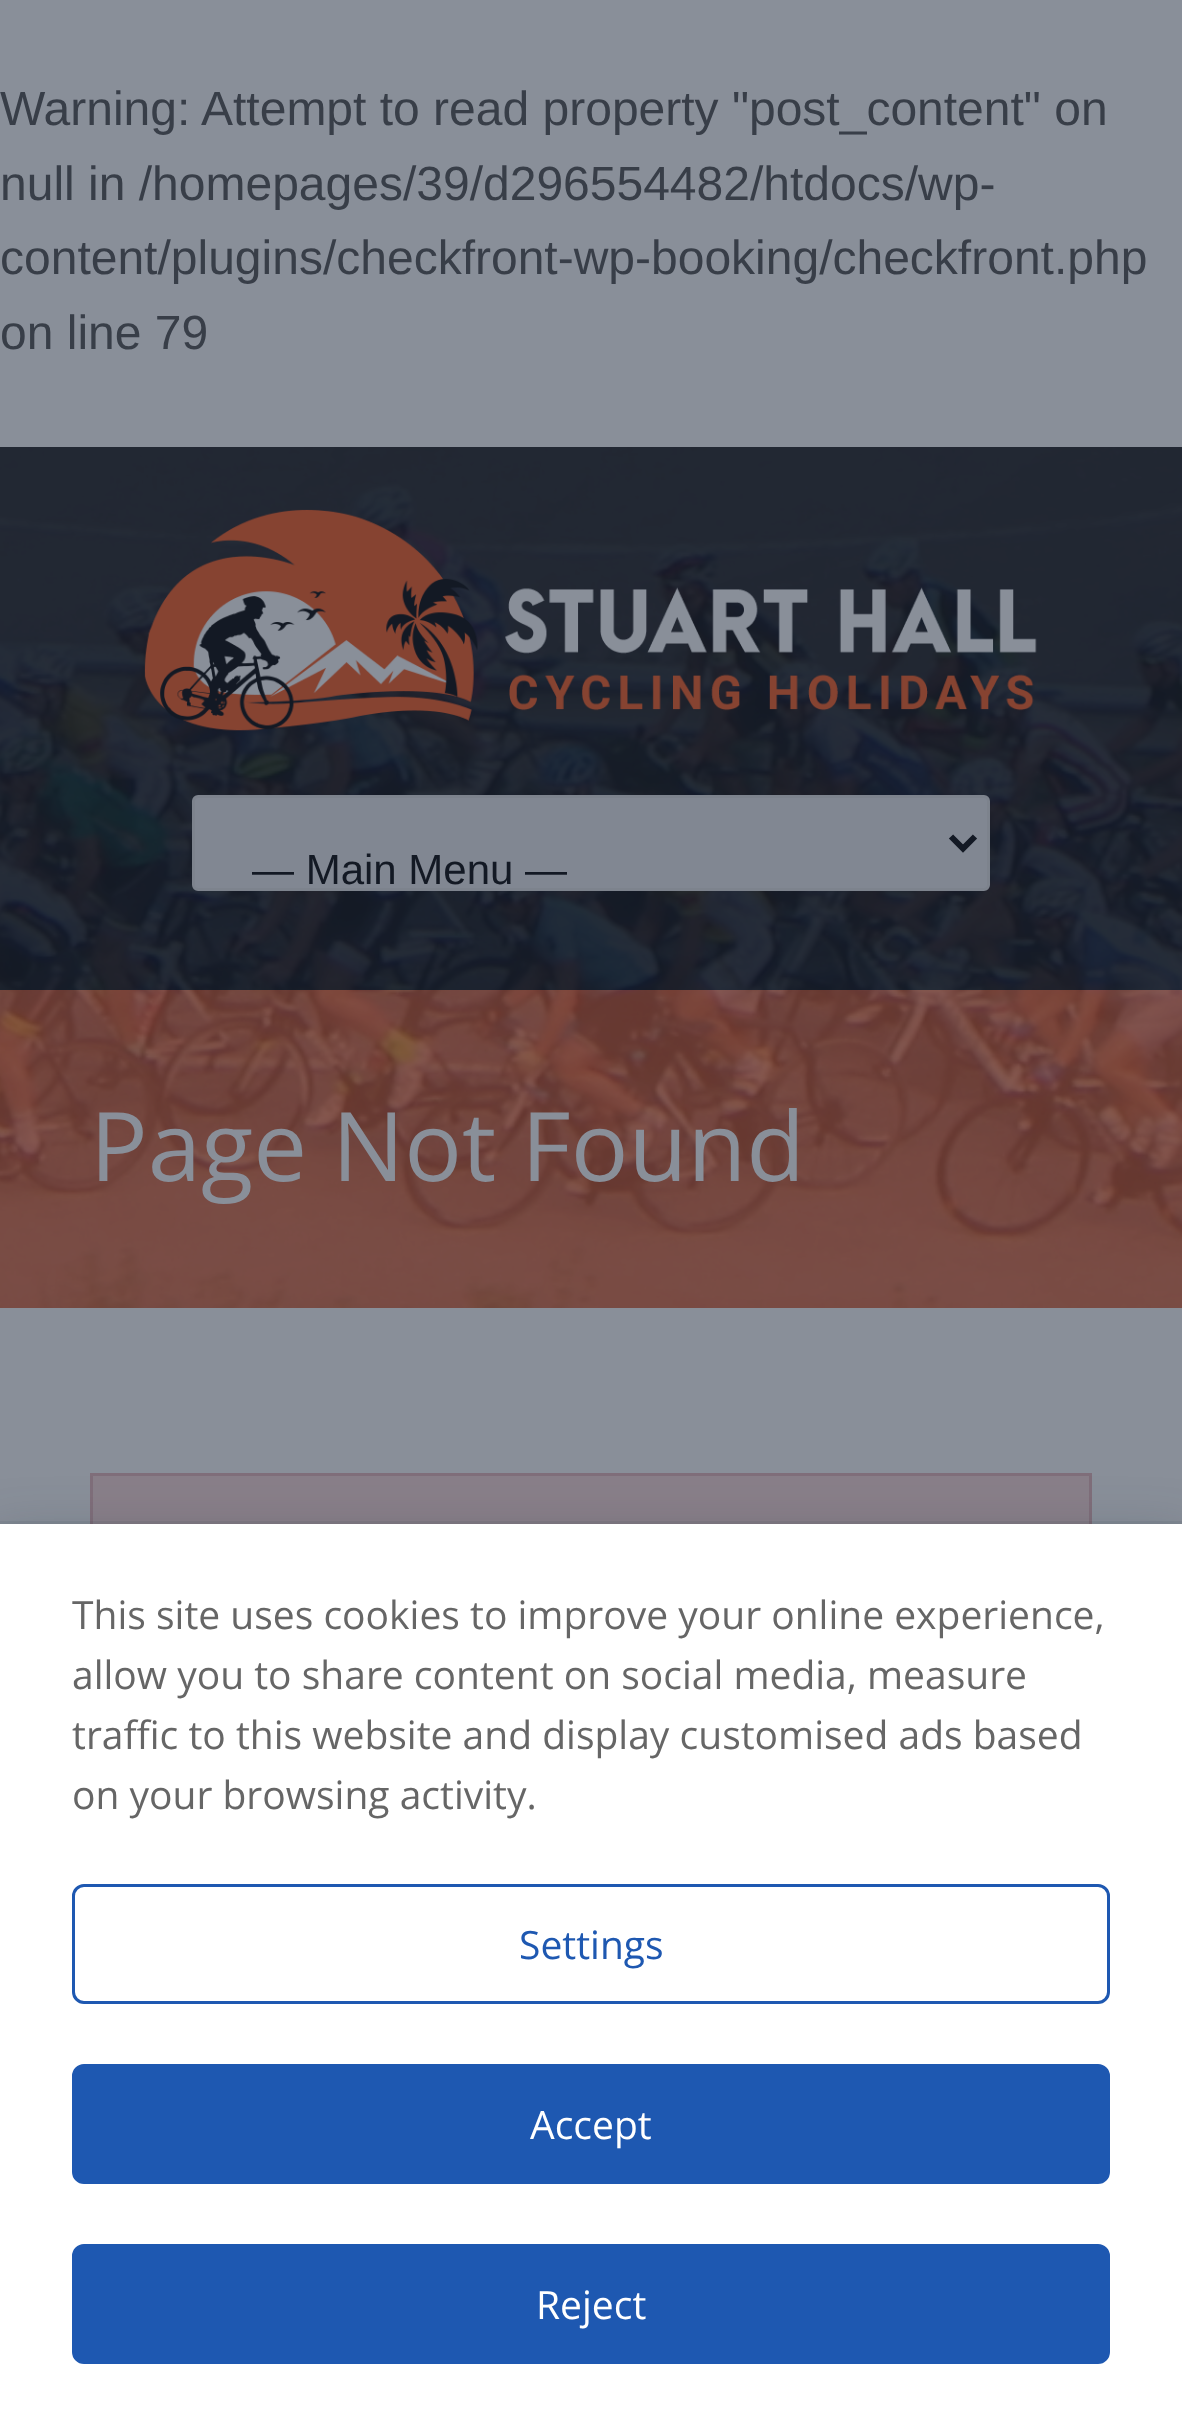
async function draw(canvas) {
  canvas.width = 1182
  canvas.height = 2424
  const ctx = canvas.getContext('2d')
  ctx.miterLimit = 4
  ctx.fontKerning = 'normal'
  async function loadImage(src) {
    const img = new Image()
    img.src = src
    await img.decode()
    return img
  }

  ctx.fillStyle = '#898f99'
  ctx.fillRect(0, 0, 1182, 2424)
  ctx.font = '48px Liberation Sans'
  ctx.fillStyle = '#383e48'
  ctx.fillText('Warning:', 0, 125)
  ctx.fillText('Attempt to read property "post_content" on', 201, 125)
  ctx.fillText('null in /homepages/39/d296554482/htdocs/wp-', 0, 200)
  ctx.fillText('content/plugins/checkfront-wp-booking/checkfront.php', 0, 274)
  ctx.fillText('on line 79', 0, 349)
  ctx.drawImage(await loadImage('image0.png'), 0, 447, 1182, 861)
  ctx.fillStyle = '#131924d4'
  ctx.fillRect(0, 447, 1182, 543)
  ctx.drawImage(await loadImage('image1.png'), 144, 509, 893, 222)
  ctx.fillStyle = '#818792'
  ctx.beginPath()
  ctx.roundRect(193.5, 796.5, 795, 93, 4.5)
  ctx.fill()
  ctx.strokeStyle = '#7d838d'
  ctx.lineWidth = 3
  ctx.stroke()
  ctx.beginPath()
  ctx.moveTo(951, 836.5)
  ctx.lineTo(963, 848.5)
  ctx.lineTo(975, 836.5)
  ctx.strokeStyle = '#131924'
  ctx.lineWidth = 6
  ctx.stroke()
  ctx.font = '42px Liberation Sans'
  ctx.fillStyle = '#131924'
  ctx.fillText('— Main Menu —', 252, 884)
  ctx.fillStyle = '#864231b3'
  ctx.fillRect(0, 990, 1182, 318)
  ctx.font = '96px Open Sans'
  ctx.fillStyle = '#898f99'
  ctx.fillText('Page Not Found', 90, 1181)
  ctx.fillStyle = '#897f89'
  ctx.fillRect(93, 1476, 996, 48)
  ctx.strokeStyle = '#7f6e7a'
  ctx.lineWidth = 3
  ctx.strokeRect(91.5, 1474.5, 999, 381)
  ctx.fillStyle = '#242f424f'
  ctx.filter = 'blur(30px)'
  ctx.beginPath()
  ctx.rect(-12, 1542, 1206, 864)
  ctx.fill()
  ctx.filter = 'none'
  ctx.strokeStyle = '#242f4214'
  ctx.strokeRect(-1.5, 1522.5, 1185, 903)
  ctx.fillStyle = '#fff'
  ctx.fillRect(0, 1524, 1182, 900)
  ctx.font = '39px Open Sans'
  ctx.fillStyle = '#666'
  ctx.fillText('This site uses cookies to improve your online experience,', 72, 1629)
  ctx.fillText('allow you to share content on social media, measure', 72, 1689)
  ctx.fillText('traffic to this website and display customised ads based', 72, 1749)
  ctx.fillText('on your browsing activity.', 72, 1809)
  ctx.beginPath()
  ctx.roundRect(73.5, 1885.5, 1035, 117, 10.5)
  ctx.strokeStyle = '#1e58b1'
  ctx.stroke()
  ctx.fillStyle = '#1e58b1'
  ctx.fillText('Settings', 519, 1959)
  ctx.beginPath()
  ctx.roundRect(73.5, 2065.5, 1035, 117, 10.5)
  ctx.fill()
  ctx.stroke()
  ctx.fillStyle = '#fff'
  ctx.fillText('Accept', 530, 2139)
  ctx.fillStyle = '#1e58b1'
  ctx.beginPath()
  ctx.roundRect(73.5, 2245.5, 1035, 117, 10.5)
  ctx.fill()
  ctx.stroke()
  ctx.fillStyle = '#fff'
  ctx.fillText('Reject', 536, 2319)
}

draw(document.querySelector('canvas'))
